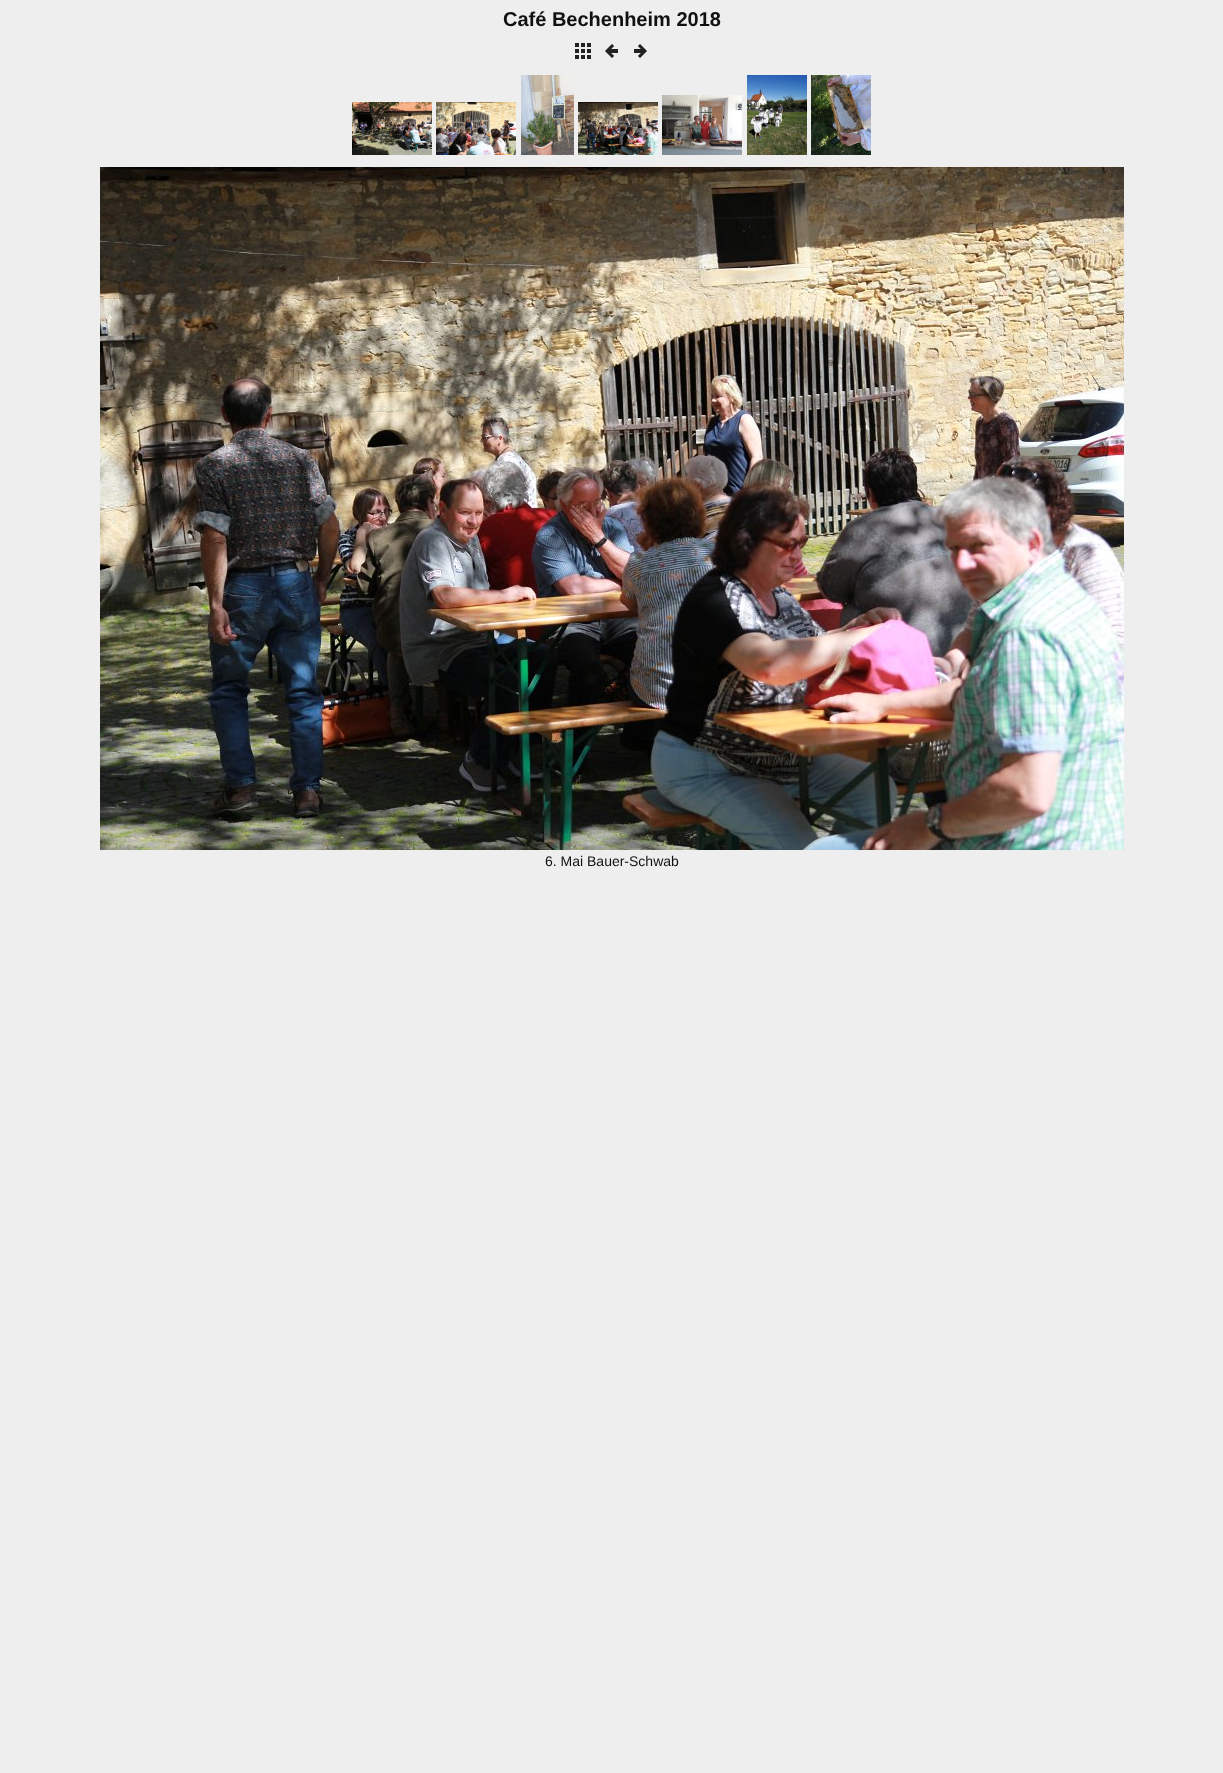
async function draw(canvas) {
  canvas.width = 1223
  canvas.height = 1773
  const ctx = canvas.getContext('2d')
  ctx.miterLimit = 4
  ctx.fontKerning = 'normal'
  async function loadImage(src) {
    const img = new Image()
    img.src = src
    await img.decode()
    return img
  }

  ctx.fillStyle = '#eee'
  ctx.fillRect(0, 0, 1223, 1773)
  ctx.font = 'bold 20px Liberation Sans'
  ctx.fillStyle = '#111'
  ctx.fillText('Café Bechenheim 2018', 503, 26)
  ctx.drawImage(await loadImage('image0.png'), 575, 43, 16, 16)
  ctx.drawImage(await loadImage('image1.png'), 605, 44, 13, 14)
  ctx.drawImage(await loadImage('image2.png'), 634, 44, 13, 14)
  ctx.drawImage(await loadImage('image3.png'), 352, 102, 80, 53)
  ctx.drawImage(await loadImage('image4.png'), 436, 102, 80, 53)
  ctx.drawImage(await loadImage('image5.png'), 521, 75, 53, 80)
  ctx.drawImage(await loadImage('image6.png'), 578, 102, 80, 53)
  ctx.drawImage(await loadImage('image7.png'), 662, 95, 80, 60)
  ctx.drawImage(await loadImage('image8.png'), 747, 75, 60, 80)
  ctx.drawImage(await loadImage('image9.png'), 811, 75, 60, 80)
  ctx.drawImage(await loadImage('image10.png'), 100, 167, 1024, 683)
  ctx.font = '14px Liberation Sans'
  ctx.fillText('6. Mai Bauer-Schwab', 545, 866)
}

draw(document.querySelector('canvas'))
